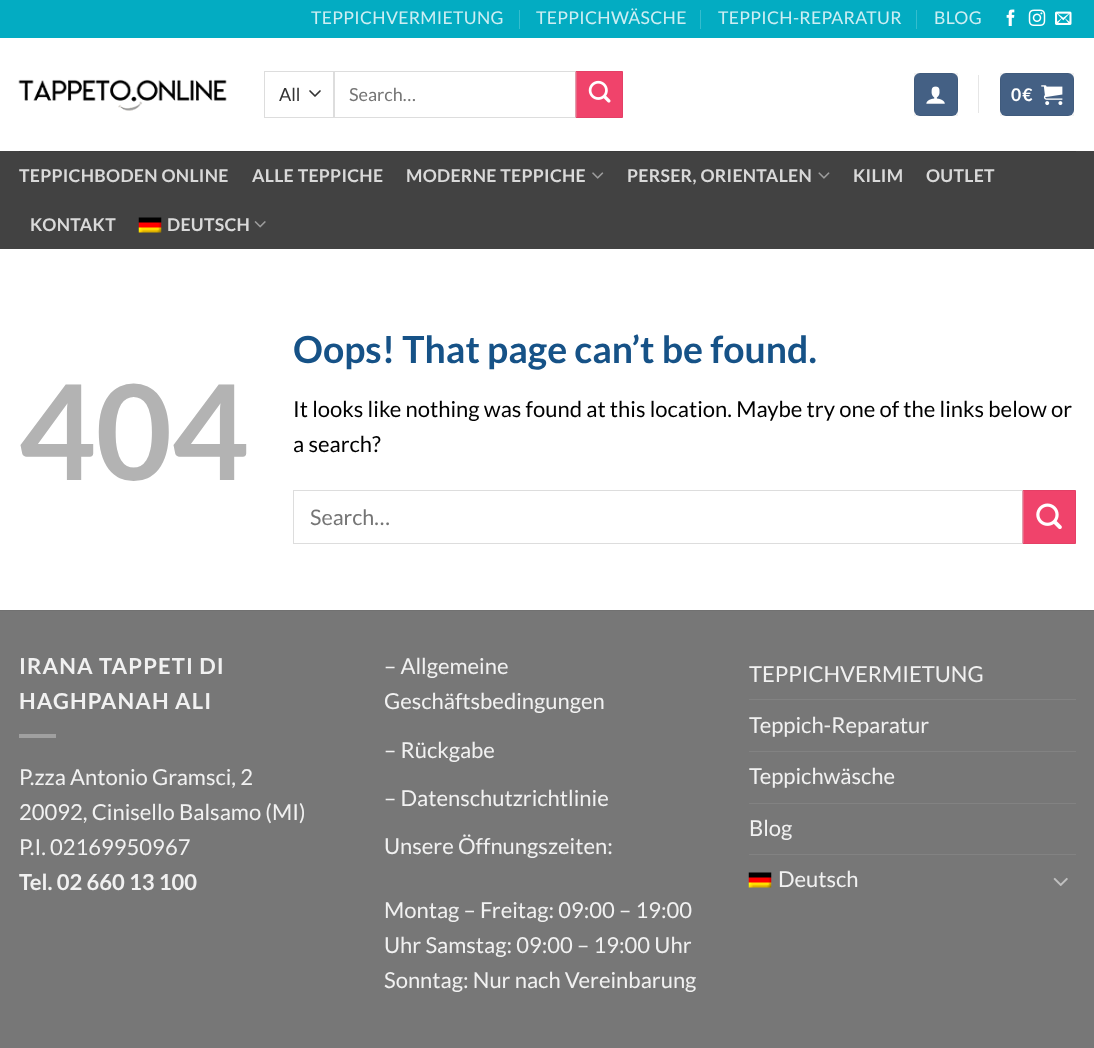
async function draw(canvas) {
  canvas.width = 1094
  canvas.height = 1048
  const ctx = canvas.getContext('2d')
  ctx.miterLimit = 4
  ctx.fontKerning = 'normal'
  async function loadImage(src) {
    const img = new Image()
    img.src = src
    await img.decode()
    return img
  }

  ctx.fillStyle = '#fff'
  ctx.fillRect(0, 0, 1094, 1048)
  ctx.fillStyle = '#03acc2'
  ctx.fillRect(0, 0, 1094, 38)
  ctx.letterSpacing = '0.3px'
  ctx.font = '17.6px Lato'
  ctx.fillStyle = '#cdeef3'
  ctx.fillText('TEPPICHVERMIETUNG', 311, 24)
  ctx.fillStyle = '#35bdce'
  ctx.fillRect(519, 10, 1, 19)
  ctx.fillStyle = '#cdeef3'
  ctx.fillText('TEPPICHWÄSCHE', 536, 24)
  ctx.fillStyle = '#35bdce'
  ctx.fillRect(700, 10, 1, 19)
  ctx.fillStyle = '#cdeef3'
  ctx.fillText('TEPPICH-REPARATUR', 718, 24)
  ctx.fillStyle = '#35bdce'
  ctx.fillRect(916, 10, 1, 19)
  ctx.fillStyle = '#cdeef3'
  ctx.fillText('BLOG', 934, 24)
  ctx.drawImage(await loadImage('image0.png'), 1006, 9, 9, 17)
  ctx.drawImage(await loadImage('image1.png'), 1028, 9, 18, 17)
  ctx.drawImage(await loadImage('image2.png'), 1055, 11, 17, 14)
  ctx.drawImage(await loadImage('image3.png'), 18, 79, 209, 32)
  ctx.beginPath()
  ctx.moveTo(310, 91)
  ctx.lineTo(315, 96)
  ctx.lineTo(320, 91)
  ctx.strokeStyle = '#333'
  ctx.lineWidth = 1.7
  ctx.lineCap = 'round'
  ctx.lineJoin = 'round'
  ctx.stroke()
  ctx.strokeStyle = '#ddd'
  ctx.lineWidth = 1
  ctx.lineJoin = 'miter'
  ctx.strokeRect(264.5, 71.5, 69, 46)
  ctx.letterSpacing = '0px'
  ctx.font = '18px Lato'
  ctx.fillStyle = '#333'
  ctx.fillText('All', 279, 101)
  ctx.strokeRect(334.5, 71.5, 241, 46)
  ctx.fillStyle = '#757575'
  ctx.fillText('Search…', 349, 101)
  ctx.fillStyle = '#f0436b'
  ctx.beginPath()
  ctx.rect(576.5, 71.5, 46, 46)
  ctx.fill()
  ctx.strokeStyle = '#e44066'
  ctx.stroke()
  ctx.drawImage(await loadImage('image4.png'), 588, 80, 23, 23)
  ctx.fillStyle = '#446084'
  ctx.beginPath()
  ctx.roundRect(914, 73, 44, 43, 6)
  ctx.fill()
  ctx.strokeStyle = '#0000000d'
  ctx.strokeRect(914.5, 73.5, 43, 42)
  ctx.drawImage(await loadImage('image5.png'), 926, 86, 19, 18)
  ctx.fillStyle = '#e6e6e6'
  ctx.fillRect(978, 75, 1, 38)
  ctx.fillStyle = '#446084'
  ctx.beginPath()
  ctx.roundRect(1000, 73, 74, 43, 6)
  ctx.fill()
  ctx.strokeRect(1000.5, 73.5, 73, 42)
  ctx.letterSpacing = '1px'
  ctx.font = 'bold 17.6px Lato'
  ctx.fillStyle = '#fff'
  ctx.fillText('0€', 1011, 101)
  ctx.drawImage(await loadImage('image6.png'), 1041, 85, 22, 21)
  ctx.fillStyle = '#424242'
  ctx.fillRect(0, 151, 1094, 98)
  ctx.fillStyle = '#3b3b3b'
  ctx.fillRect(19, 151, 1057, 1)
  ctx.letterSpacing = '0.3px'
  ctx.fillStyle = '#d9d9d9'
  ctx.fillText('TEPPICHBODEN ONLINE', 19, 182)
  ctx.fillText('ALLE TEPPICHE', 252, 182)
  ctx.fillText('MODERNE TEPPICHE', 406, 182)
  ctx.drawImage(await loadImage('image7.png'), 592, 172, 12, 7)
  ctx.fillText('PERSER, ORIENTALEN', 627, 182)
  ctx.drawImage(await loadImage('image8.png'), 818, 172, 12, 7)
  ctx.fillText('KILIM', 853, 182)
  ctx.fillText('OUTLET', 926, 182)
  ctx.fillText('KONTAKT', 30, 231)
  ctx.drawImage(await loadImage('image9.png'), 138, 217, 24, 16)
  ctx.fillText('DEUTSCH', 167, 231)
  ctx.drawImage(await loadImage('image10.png'), 254, 221, 12, 7)
  ctx.letterSpacing = '0px'
  ctx.font = 'bold 132px Lato'
  ctx.fillStyle = '#b3b3b3'
  ctx.fillText('404', 19, 480)
  ctx.font = 'bold 37.4px Lato'
  ctx.fillStyle = '#165287'
  ctx.fillText('Oops! That page can’t be found.', 293, 363)
  ctx.font = '22px Lato'
  ctx.fillStyle = '#000'
  ctx.fillText('It looks like nothing was found at this location. Maybe try one of the links below or', 293, 417)
  ctx.fillText('a search?', 293, 452)
  ctx.strokeStyle = '#ddd'
  ctx.strokeRect(293.5, 490.5, 729, 53)
  ctx.font = '21.5px Lato'
  ctx.fillStyle = '#757575'
  ctx.fillText('Search…', 310, 525)
  ctx.fillStyle = '#f0436b'
  ctx.beginPath()
  ctx.rect(1023.5, 490.5, 52, 53)
  ctx.fill()
  ctx.strokeStyle = '#e44066'
  ctx.stroke()
  ctx.drawImage(await loadImage('image11.png'), 1036, 503, 26, 27)
  ctx.fillStyle = '#777'
  ctx.fillRect(0, 611, 1094, 437)
  ctx.fillStyle = '#717171'
  ctx.fillRect(0, 610, 1094, 1)
  ctx.letterSpacing = '1.1px'
  ctx.font = 'bold 22px Lato'
  ctx.fillStyle = '#f1f1f1'
  ctx.fillText('IRANA TAPPETI DI', 19, 674)
  ctx.fillText('HAGHPANAH ALI', 19, 709)
  ctx.fillStyle = '#a0a0a0'
  ctx.fillRect(19, 734, 37, 4)
  ctx.letterSpacing = '0px'
  ctx.font = '22px Lato'
  ctx.fillStyle = '#f1f1f1'
  ctx.fillText('P.zza Antonio Gramsci, 2', 19, 785)
  ctx.fillText('20092, Cinisello Balsamo (MI)', 19, 820)
  ctx.fillText('P.I. 02169950967', 19, 855)
  ctx.font = 'bold 22px Lato'
  ctx.fillText('Tel. 02 660 13 100', 19, 890)
  ctx.font = '22px Lato'
  ctx.fillText('– Allgemeine', 384, 674)
  ctx.fillText('Geschäftsbedingungen', 384, 709)
  ctx.fillText('– Rückgabe', 384, 758)
  ctx.fillText('– Datenschutzrichtlinie', 384, 806)
  ctx.fillText('Unsere Öffnungszeiten:', 384, 854)
  ctx.fillText('Montag – Freitag: 09:00 – 19:00', 384, 918)
  ctx.fillText('Uhr Samstag: 09:00 – 19:00 Uhr', 384, 953)
  ctx.fillText('Sonntag: Nur nach Vereinbarung', 384, 988)
  ctx.fillText('TEPPICHVERMIETUNG', 749, 682)
  ctx.fillStyle = '#828282'
  ctx.fillRect(749, 699, 327, 1)
  ctx.fillStyle = '#f1f1f1'
  ctx.fillText('Teppich-Reparatur', 749, 733)
  ctx.fillStyle = '#828282'
  ctx.fillRect(749, 751, 327, 1)
  ctx.fillStyle = '#f1f1f1'
  ctx.fillText('Teppichwäsche', 749, 784)
  ctx.fillStyle = '#828282'
  ctx.fillRect(749, 803, 327, 1)
  ctx.fillStyle = '#f1f1f1'
  ctx.fillText('Blog', 749, 836)
  ctx.fillStyle = '#828282'
  ctx.fillRect(749, 854, 327, 1)
  ctx.drawImage(await loadImage('image12.png'), 748, 872, 24, 16)
  ctx.fillStyle = '#f1f1f1'
  ctx.fillText('Deutsch', 778, 887)
  ctx.drawImage(await loadImage('image13.png'), 1053, 877, 15, 9)
}

draw(document.querySelector('canvas'))
